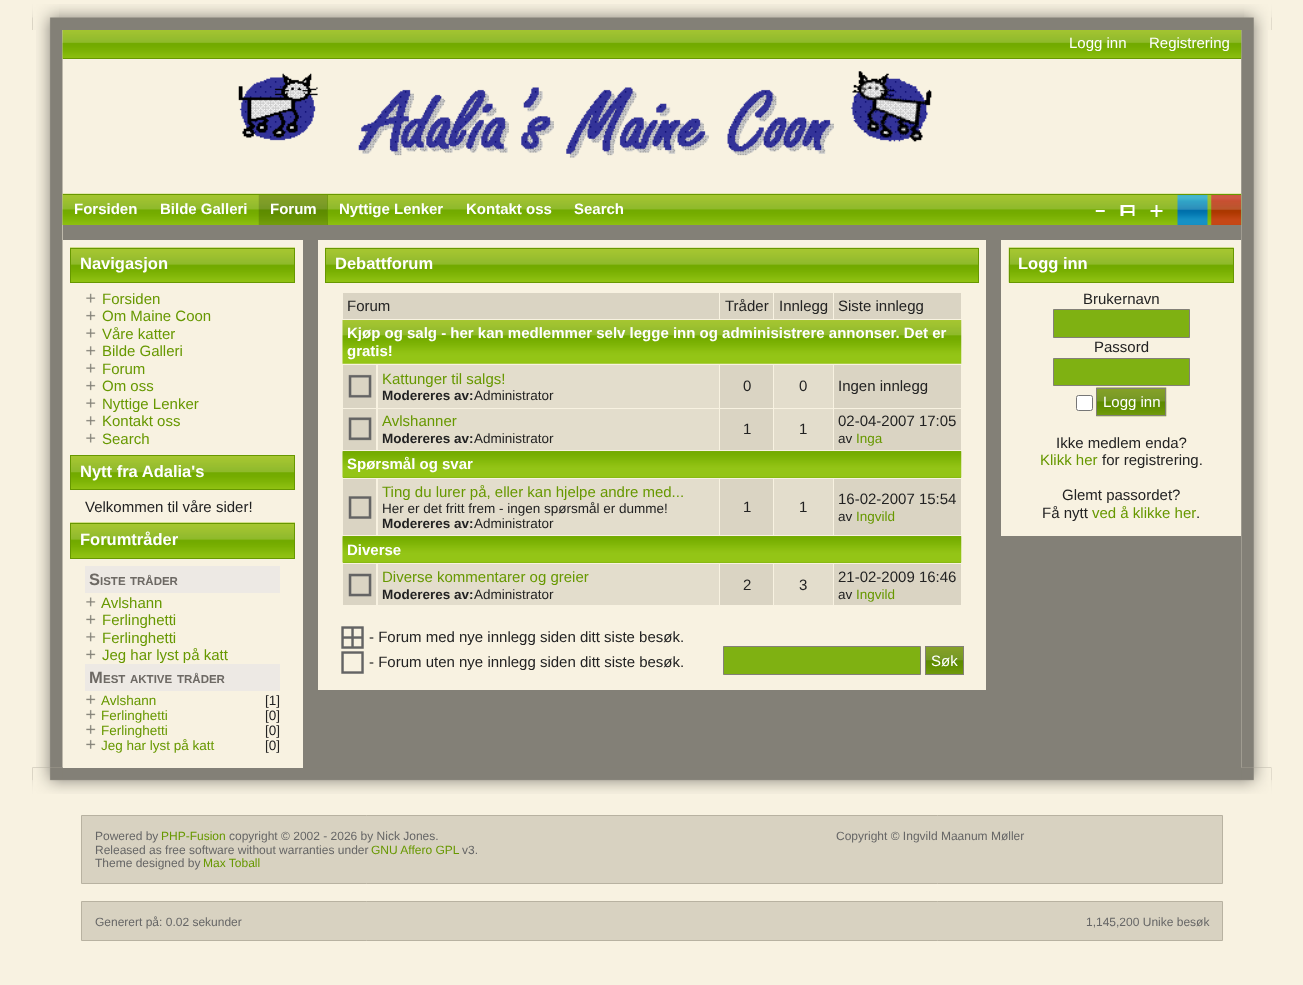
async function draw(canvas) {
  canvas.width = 1303
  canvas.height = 985
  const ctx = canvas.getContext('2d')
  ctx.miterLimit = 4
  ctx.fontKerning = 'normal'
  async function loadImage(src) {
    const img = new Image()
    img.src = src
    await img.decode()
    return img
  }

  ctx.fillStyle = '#f8f2e1'
  ctx.fillRect(0, 0, 1303, 985)
  ctx.drawImage(await loadImage('image0.png'), 32, 4, 1240, 26)
  ctx.drawImage(await loadImage('image1.png'), 32, 4, 27, 26)
  ctx.drawImage(await loadImage('image2.png'), 1244, 4, 28, 26)
  ctx.drawImage(await loadImage('image3.png'), 1241, 30, 27, 738)
  ctx.drawImage(await loadImage('image4.png'), 36, 30, 27, 738)
  ctx.fillStyle = '#838077'
  ctx.fillRect(63, 225, 1178, 543)
  ctx.drawImage(await loadImage('image5.png'), 62, 30, 1180, 29)
  ctx.fillStyle = '#679800'
  ctx.fillRect(63, 58, 1178, 1)
  ctx.font = '15px Liberation Sans'
  ctx.fillStyle = '#fff'
  ctx.fillText('Logg inn', 1069, 48)
  ctx.fillText('Registrering', 1149, 48)
  ctx.drawImage(await loadImage('image6.png'), 238, 71, 694, 87)
  ctx.drawImage(await loadImage('image7.png'), 62, 193, 1180, 32)
  ctx.fillStyle = '#679800'
  ctx.fillRect(63, 194, 1178, 1)
  ctx.font = 'bold 15px Liberation Sans'
  ctx.fillStyle = '#fff'
  ctx.fillText('Forsiden', 74, 214)
  ctx.fillText('Bilde Galleri', 160, 214)
  ctx.fillStyle = '#679800'
  ctx.fillRect(327, 195, 1, 30)
  ctx.drawImage(await loadImage('image8.png'), 258, 195, 70, 30)
  ctx.fillStyle = '#fff'
  ctx.fillText('Forum', 270, 214)
  ctx.fillText('Nyttige Lenker', 339, 214)
  ctx.fillText('Kontakt oss', 466, 214)
  ctx.fillText('Search', 574, 214)
  ctx.drawImage(await loadImage('image9.png'), 1095, 210, 10, 2)
  ctx.drawImage(await loadImage('image10.png'), 1120, 205, 15, 11)
  ctx.drawImage(await loadImage('image11.png'), 1150, 205, 13, 12)
  ctx.drawImage(await loadImage('image12.png'), 1177, 195, 31, 30)
  ctx.drawImage(await loadImage('image13.png'), 1211, 195, 31, 30)
  ctx.drawImage(await loadImage('image34.png'), 32, 767, 1240, 27)
  ctx.fillStyle = '#f8f2e1'
  ctx.fillRect(63, 240, 240, 528)
  ctx.drawImage(await loadImage('image14.png'), 70, 247, 225, 35)
  ctx.strokeStyle = '#679800'
  ctx.strokeRect(70.5, 248.5, 224, 34)
  ctx.font = 'bold 16.5px Liberation Sans'
  ctx.fillStyle = '#fff'
  ctx.fillText('Navigasjon', 80, 269)
  ctx.drawImage(await loadImage('image15.png'), 86, 293, 10, 10)
  ctx.font = '15px Liberation Sans'
  ctx.fillStyle = '#679800'
  ctx.fillText('Forsiden', 102, 304)
  ctx.drawImage(await loadImage('image16.png'), 86, 311, 10, 10)
  ctx.fillText('Om Maine Coon', 102, 321)
  ctx.drawImage(await loadImage('image17.png'), 86, 328, 10, 10)
  ctx.fillText('Våre katter', 102, 339)
  ctx.drawImage(await loadImage('image16.png'), 86, 346, 10, 10)
  ctx.fillText('Bilde Galleri', 102, 356)
  ctx.drawImage(await loadImage('image17.png'), 86, 363, 10, 10)
  ctx.fillText('Forum', 102, 374)
  ctx.drawImage(await loadImage('image16.png'), 86, 381, 10, 10)
  ctx.fillText('Om oss', 102, 391)
  ctx.drawImage(await loadImage('image17.png'), 86, 398, 10, 10)
  ctx.fillText('Nyttige Lenker', 102, 409)
  ctx.drawImage(await loadImage('image16.png'), 86, 416, 10, 10)
  ctx.fillText('Kontakt oss', 102, 426)
  ctx.drawImage(await loadImage('image17.png'), 86, 433, 10, 10)
  ctx.fillText('Search', 102, 444)
  ctx.drawImage(await loadImage('image18.png'), 71, 456, 223, 33)
  ctx.strokeRect(70.5, 455.5, 224, 34)
  ctx.font = 'bold 16.5px Liberation Sans'
  ctx.fillStyle = '#fff'
  ctx.fillText('Nytt fra Adalia\'s', 80, 477)
  ctx.font = '15px Liberation Sans'
  ctx.fillStyle = '#222'
  ctx.fillText('Velkommen til våre sider!', 85, 512)
  ctx.drawImage(await loadImage('image19.png'), 70, 522, 225, 36)
  ctx.strokeRect(70.5, 523.5, 224, 35)
  ctx.font = 'bold 16.5px Liberation Sans'
  ctx.fillStyle = '#fff'
  ctx.fillText('Forumtråder', 80, 545)
  ctx.fillStyle = '#ede9e4'
  ctx.fillRect(85, 566, 195, 27)
  ctx.fillStyle = '#6d6964'
  ctx.fillText('S', 89, 585)
  ctx.font = 'bold 11.5px Liberation Sans'
  ctx.fillText('ISTE', 100, 585)
  ctx.fillText('TRÅDER', 130, 585)
  ctx.drawImage(await loadImage('image20.png'), 86, 597, 10, 10)
  ctx.font = '15px Liberation Sans'
  ctx.fillStyle = '#679800'
  ctx.fillText('Avlshann', 101, 608)
  ctx.drawImage(await loadImage('image21.png'), 86, 614, 10, 10)
  ctx.fillText('Ferlinghetti', 102, 625)
  ctx.drawImage(await loadImage('image20.png'), 86, 632, 10, 10)
  ctx.fillText('Ferlinghetti', 102, 643)
  ctx.drawImage(await loadImage('image21.png'), 86, 649, 10, 10)
  ctx.fillText('Jeg har lyst på katt', 102, 660)
  ctx.fillStyle = '#ede9e4'
  ctx.fillRect(85, 664, 195, 27)
  ctx.font = 'bold 16.5px Liberation Sans'
  ctx.fillStyle = '#6d6964'
  ctx.fillText('M', 89, 683)
  ctx.font = 'bold 11.5px Liberation Sans'
  ctx.fillText('EST', 103, 683)
  ctx.fillText('AKTIVE', 130, 683)
  ctx.fillText('TRÅDER', 177, 683)
  ctx.drawImage(await loadImage('image21.png'), 86, 694, 10, 10)
  ctx.font = '13.5px Liberation Sans'
  ctx.fillStyle = '#679800'
  ctx.fillText('Avlshann', 101, 705)
  ctx.fillStyle = '#222'
  ctx.fillText('[1]', 265, 705)
  ctx.drawImage(await loadImage('image21.png'), 86, 709, 10, 10)
  ctx.fillStyle = '#679800'
  ctx.fillText('Ferlinghetti', 101, 720)
  ctx.fillStyle = '#222'
  ctx.fillText('[0]', 265, 720)
  ctx.drawImage(await loadImage('image21.png'), 86, 724, 10, 10)
  ctx.fillStyle = '#679800'
  ctx.fillText('Ferlinghetti', 101, 735)
  ctx.fillStyle = '#222'
  ctx.fillText('[0]', 265, 735)
  ctx.drawImage(await loadImage('image21.png'), 86, 739, 10, 10)
  ctx.fillStyle = '#679800'
  ctx.fillText('Jeg har lyst på katt', 101, 750)
  ctx.fillStyle = '#222'
  ctx.fillText('[0]', 265, 750)
  ctx.fillStyle = '#f8f2e1'
  ctx.fillRect(318, 240, 668, 450)
  ctx.drawImage(await loadImage('image22.png'), 325, 247, 654, 35)
  ctx.strokeRect(325.5, 248.5, 653, 34)
  ctx.font = 'bold 16.5px Liberation Sans'
  ctx.fillStyle = '#fff'
  ctx.fillText('Debattforum', 335, 269)
  ctx.fillStyle = '#dad4c3'
  ctx.fillRect(343, 293, 376, 26)
  ctx.font = '15px Liberation Sans'
  ctx.fillStyle = '#222'
  ctx.fillText('Forum', 347, 311)
  ctx.fillStyle = '#dad4c3'
  ctx.fillRect(720, 293, 53, 26)
  ctx.fillStyle = '#222'
  ctx.fillText('Tråder', 725, 311)
  ctx.fillStyle = '#dad4c3'
  ctx.fillRect(774, 293, 59, 26)
  ctx.fillStyle = '#222'
  ctx.fillText('Innlegg', 779, 311)
  ctx.fillStyle = '#dad4c3'
  ctx.fillRect(834, 293, 127, 26)
  ctx.fillStyle = '#222'
  ctx.fillText('Siste innlegg', 838, 311)
  ctx.drawImage(await loadImage('image23.png'), 342, 320, 620, 44)
  ctx.font = 'bold 15px Liberation Sans'
  ctx.fillStyle = '#fff'
  ctx.fillText('Kjøp og salg - her kan medlemmer selv legge inn og adminisistrere annonser. Det er', 347, 338)
  ctx.fillText('gratis!', 347, 356)
  ctx.fillStyle = '#dad4c3'
  ctx.fillRect(343, 365, 33, 43)
  ctx.drawImage(await loadImage('image24.png'), 348, 374, 24, 24)
  ctx.fillStyle = '#e3ddcc'
  ctx.fillRect(378, 365, 341, 43)
  ctx.font = '15px Liberation Sans'
  ctx.fillStyle = '#679800'
  ctx.fillText('Kattunger til salgs!', 382, 384)
  ctx.font = 'bold 13.5px Liberation Sans'
  ctx.fillStyle = '#222'
  ctx.fillText('Modereres av:', 382, 400)
  ctx.font = '13.5px Liberation Sans'
  ctx.fillText('Administrator', 474, 400)
  ctx.fillStyle = '#dad4c3'
  ctx.fillRect(720, 365, 53, 43)
  ctx.font = '15px Liberation Sans'
  ctx.fillStyle = '#222'
  ctx.fillText('0', 743, 391)
  ctx.fillStyle = '#e3ddcc'
  ctx.fillRect(774, 365, 59, 43)
  ctx.fillStyle = '#222'
  ctx.fillText('0', 799, 391)
  ctx.fillStyle = '#dad4c3'
  ctx.fillRect(834, 365, 127, 43)
  ctx.fillStyle = '#222'
  ctx.fillText('Ingen innlegg', 838, 391)
  ctx.fillStyle = '#dad4c3'
  ctx.fillRect(343, 409, 33, 41)
  ctx.drawImage(await loadImage('image25.png'), 348, 417, 24, 24)
  ctx.fillStyle = '#e3ddcc'
  ctx.fillRect(378, 409, 341, 41)
  ctx.fillStyle = '#679800'
  ctx.fillText('Avlshanner', 382, 426)
  ctx.font = 'bold 13.5px Liberation Sans'
  ctx.fillStyle = '#222'
  ctx.fillText('Modereres av:', 382, 443)
  ctx.font = '13.5px Liberation Sans'
  ctx.fillText('Administrator', 474, 443)
  ctx.fillStyle = '#dad4c3'
  ctx.fillRect(720, 409, 53, 41)
  ctx.font = '15px Liberation Sans'
  ctx.fillStyle = '#222'
  ctx.fillText('1', 743, 434)
  ctx.fillStyle = '#e3ddcc'
  ctx.fillRect(774, 409, 59, 41)
  ctx.fillStyle = '#222'
  ctx.fillText('1', 799, 434)
  ctx.fillStyle = '#dad4c3'
  ctx.fillRect(834, 409, 127, 41)
  ctx.fillStyle = '#222'
  ctx.fillText('02-04-2007 17:05', 838, 426)
  ctx.font = '13.5px Liberation Sans'
  ctx.fillText('av', 838, 443)
  ctx.fillStyle = '#679800'
  ctx.fillText('Inga', 856, 443)
  ctx.fillStyle = '#7fb112'
  ctx.fillRect(343, 451, 618, 27)
  ctx.drawImage(await loadImage('image26.png'), 342, 451, 620, 27)
  ctx.font = 'bold 15px Liberation Sans'
  ctx.fillStyle = '#fff'
  ctx.fillText('Spørsmål og svar', 347, 469)
  ctx.fillStyle = '#dad4c3'
  ctx.fillRect(343, 479, 33, 56)
  ctx.drawImage(await loadImage('image27.png'), 348, 496, 24, 23)
  ctx.fillStyle = '#e3ddcc'
  ctx.fillRect(378, 479, 341, 56)
  ctx.font = '15px Liberation Sans'
  ctx.fillStyle = '#679800'
  ctx.fillText('Ting du lurer på, eller kan hjelpe andre med...', 382, 497)
  ctx.font = '13.5px Liberation Sans'
  ctx.fillStyle = '#222'
  ctx.fillText('Her er det fritt frem - ingen spørsmål er dumme!', 382, 513)
  ctx.font = 'bold 13.5px Liberation Sans'
  ctx.fillText('Modereres av:', 382, 528)
  ctx.font = '13.5px Liberation Sans'
  ctx.fillText('Administrator', 474, 528)
  ctx.fillStyle = '#dad4c3'
  ctx.fillRect(720, 479, 53, 56)
  ctx.font = '15px Liberation Sans'
  ctx.fillStyle = '#222'
  ctx.fillText('1', 743, 512)
  ctx.fillStyle = '#e3ddcc'
  ctx.fillRect(774, 479, 59, 56)
  ctx.fillStyle = '#222'
  ctx.fillText('1', 799, 512)
  ctx.fillStyle = '#dad4c3'
  ctx.fillRect(834, 479, 127, 56)
  ctx.fillStyle = '#222'
  ctx.fillText('16-02-2007 15:54', 838, 504)
  ctx.font = '13.5px Liberation Sans'
  ctx.fillText('av', 838, 521)
  ctx.fillStyle = '#679800'
  ctx.fillText('Ingvild', 856, 521)
  ctx.fillStyle = '#7fb112'
  ctx.fillRect(343, 536, 618, 27)
  ctx.drawImage(await loadImage('image26.png'), 342, 536, 620, 27)
  ctx.font = 'bold 15px Liberation Sans'
  ctx.fillStyle = '#fff'
  ctx.fillText('Diverse', 347, 555)
  ctx.fillStyle = '#dad4c3'
  ctx.fillRect(343, 564, 33, 41)
  ctx.drawImage(await loadImage('image28.png'), 348, 573, 24, 24)
  ctx.fillStyle = '#e3ddcc'
  ctx.fillRect(378, 564, 341, 41)
  ctx.font = '15px Liberation Sans'
  ctx.fillStyle = '#679800'
  ctx.fillText('Diverse kommentarer og greier', 382, 582)
  ctx.font = 'bold 13.5px Liberation Sans'
  ctx.fillStyle = '#222'
  ctx.fillText('Modereres av:', 382, 599)
  ctx.font = '13.5px Liberation Sans'
  ctx.fillText('Administrator', 474, 599)
  ctx.fillStyle = '#dad4c3'
  ctx.fillRect(720, 564, 53, 41)
  ctx.font = '15px Liberation Sans'
  ctx.fillStyle = '#222'
  ctx.fillText('2', 743, 590)
  ctx.fillStyle = '#e3ddcc'
  ctx.fillRect(774, 564, 59, 41)
  ctx.fillStyle = '#222'
  ctx.fillText('3', 799, 590)
  ctx.fillStyle = '#dad4c3'
  ctx.fillRect(834, 564, 127, 41)
  ctx.fillStyle = '#222'
  ctx.fillText('21-02-2009 16:46', 838, 582)
  ctx.font = '13.5px Liberation Sans'
  ctx.fillText('av', 838, 599)
  ctx.fillStyle = '#679800'
  ctx.fillText('Ingvild', 856, 599)
  ctx.drawImage(await loadImage('image29.png'), 341, 626, 23, 23)
  ctx.font = '15px Liberation Sans'
  ctx.fillStyle = '#222'
  ctx.fillText('- Forum med nye innlegg siden ditt siste besøk.', 369, 642)
  ctx.drawImage(await loadImage('image30.png'), 341, 651, 23, 23)
  ctx.fillText('- Forum uten nye innlegg siden ditt siste besøk.', 369, 667)
  ctx.fillStyle = '#7fb112'
  ctx.beginPath()
  ctx.rect(723.5, 646.5, 197, 28)
  ctx.fill()
  ctx.strokeStyle = '#838077'
  ctx.stroke()
  ctx.drawImage(await loadImage('image31.png'), 926, 647, 37, 27)
  ctx.strokeRect(925.5, 646.5, 38, 28)
  ctx.fillStyle = '#fff'
  ctx.fillText('Søk', 931, 666)
  ctx.fillStyle = '#f8f2e1'
  ctx.fillRect(1001, 240, 240, 296)
  ctx.drawImage(await loadImage('image32.png'), 1008, 247, 226, 36)
  ctx.strokeStyle = '#679800'
  ctx.strokeRect(1009.5, 248.5, 224, 34)
  ctx.font = 'bold 16.5px Liberation Sans'
  ctx.fillStyle = '#fff'
  ctx.fillText('Logg inn', 1018, 269)
  ctx.font = '15px Liberation Sans'
  ctx.fillStyle = '#222'
  ctx.fillText('Brukernavn', 1083, 304)
  ctx.fillStyle = '#7fb112'
  ctx.beginPath()
  ctx.rect(1053.5, 309.5, 136, 28)
  ctx.fill()
  ctx.strokeStyle = '#838077'
  ctx.stroke()
  ctx.fillStyle = '#222'
  ctx.fillText('Passord', 1094, 352)
  ctx.fillStyle = '#7fb112'
  ctx.beginPath()
  ctx.rect(1053.5, 358.5, 136, 27)
  ctx.fill()
  ctx.stroke()
  ctx.fillStyle = '#fff'
  ctx.beginPath()
  ctx.roundRect(1076.5, 395.5, 16, 15, 2)
  ctx.fill()
  ctx.strokeStyle = '#767676'
  ctx.stroke()
  ctx.drawImage(await loadImage('image33.png'), 1096, 387, 71, 30)
  ctx.strokeStyle = '#838077'
  ctx.strokeRect(1096.5, 388.5, 69, 27)
  ctx.fillText('Logg inn', 1103, 407)
  ctx.fillStyle = '#222'
  ctx.fillText('Ikke medlem enda?', 1056, 448)
  ctx.fillStyle = '#679800'
  ctx.fillText('Klikk her', 1040, 465)
  ctx.fillStyle = '#222'
  ctx.fillText('for registrering.', 1102, 465)
  ctx.fillText('Glemt passordet?', 1062, 500)
  ctx.fillText('Få nytt', 1042, 518)
  ctx.fillStyle = '#679800'
  ctx.fillText('ved å klikke her', 1092, 518)
  ctx.fillStyle = '#222'
  ctx.fillText('.', 1196, 518)
  ctx.drawImage(await loadImage('image35.png'), 32, 767, 31, 27)
  ctx.drawImage(await loadImage('image36.png'), 1241, 767, 31, 27)
  ctx.fillStyle = '#d8d2c1'
  ctx.beginPath()
  ctx.rect(81.5, 815.5, 1141, 68)
  ctx.fill()
  ctx.strokeStyle = '#b8b2a1'
  ctx.stroke()
  ctx.font = '12px Liberation Sans'
  ctx.fillStyle = '#666'
  ctx.fillText('Powered by', 95, 840)
  ctx.fillStyle = '#679800'
  ctx.fillText('PHP-Fusion', 161, 840)
  ctx.fillStyle = '#666'
  ctx.fillText('copyright © 2002 - 2026 by Nick Jones.', 229, 840)
  ctx.fillText('Released as free software without warranties under', 95, 854)
  ctx.fillStyle = '#679800'
  ctx.fillText('GNU Affero GPL', 371, 854)
  ctx.fillStyle = '#666'
  ctx.fillText('v3.', 462, 854)
  ctx.fillText('Theme designed by', 95, 867)
  ctx.fillStyle = '#679800'
  ctx.fillText('Max Toball', 203, 867)
  ctx.fillStyle = '#666'
  ctx.fillText('Copyright © Ingvild Maanum Møller', 836, 840)
  ctx.fillStyle = '#d8d2c1'
  ctx.beginPath()
  ctx.rect(81.5, 901.5, 1141, 39)
  ctx.fill()
  ctx.stroke()
  ctx.fillStyle = '#666'
  ctx.fillText('Generert på: 0.02 sekunder', 95, 926)
  ctx.fillText('1,145,200 Unike besøk', 1086, 926)
}

draw(document.querySelector('canvas'))
